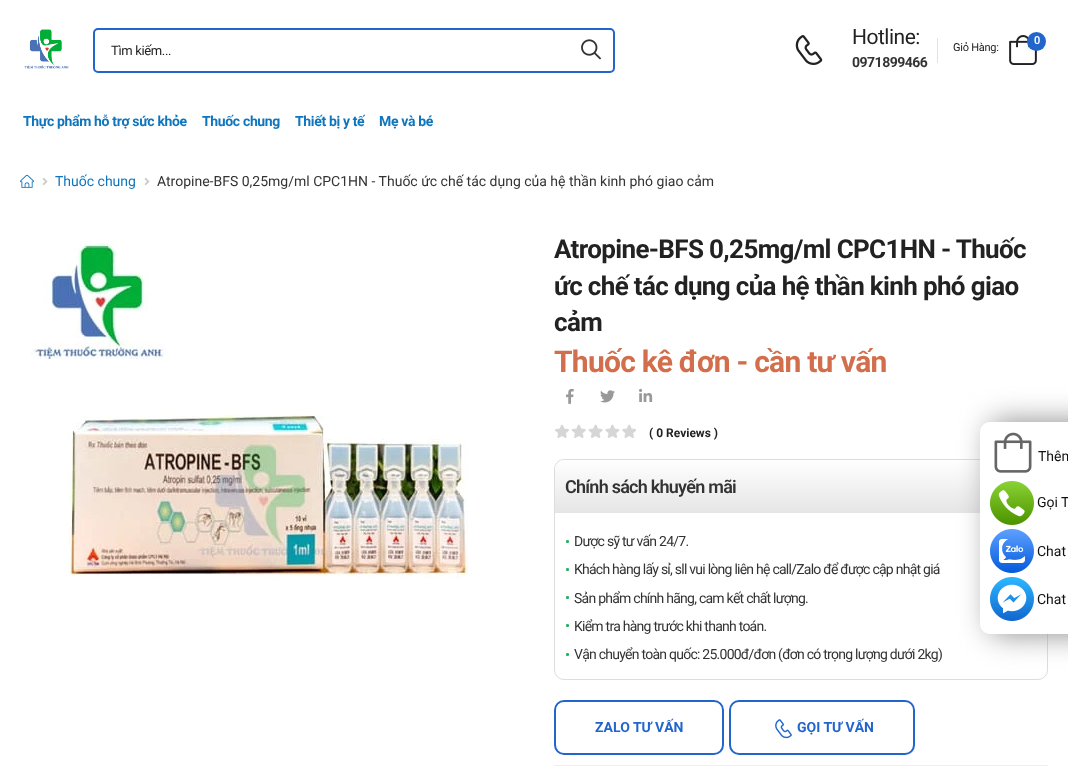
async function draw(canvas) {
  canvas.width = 1068
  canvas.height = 768
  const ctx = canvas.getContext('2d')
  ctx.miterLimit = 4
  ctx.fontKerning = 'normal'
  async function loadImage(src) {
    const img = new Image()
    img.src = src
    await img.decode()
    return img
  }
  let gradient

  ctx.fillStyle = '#fff'
  ctx.fillRect(0, 0, 1068, 768)
  ctx.drawImage(await loadImage('image0.png'), 24, 29, 45, 40)
  ctx.beginPath()
  ctx.roundRect(94, 29, 520, 43, 4)
  ctx.strokeStyle = '#26c'
  ctx.lineWidth = 2
  ctx.stroke()
  ctx.letterSpacing = '-0.35px'
  ctx.font = '13px Roboto'
  ctx.fillStyle = '#222'
  ctx.fillText('Tìm kiếm...', 111, 55)
  ctx.drawImage(await loadImage('image1.png'), 581, 39, 20, 21)
  ctx.drawImage(await loadImage('image2.png'), 795, 35, 28, 30)
  ctx.letterSpacing = '-0.5px'
  ctx.font = '21px Roboto'
  ctx.fillText('Hotline:', 852, 44)
  ctx.font = 'bold 14px Roboto'
  ctx.fillStyle = '#333'
  ctx.fillText('0971899466', 852, 67)
  ctx.fillStyle = '#e1e1e1'
  ctx.fillRect(937, 38, 1, 25)
  ctx.drawImage(await loadImage('image3.png'), 1009, 35, 28, 30)
  ctx.fillStyle = '#26c'
  ctx.beginPath()
  ctx.arc(1036.5, 41.5, 9.5, 0, 2 * Math.PI)
  ctx.fill()
  ctx.letterSpacing = '-0.35px'
  ctx.font = '600 11px Roboto'
  ctx.fillStyle = '#fff'
  ctx.fillText('0', 1034, 44)
  ctx.letterSpacing = '-0.25px'
  ctx.font = '11px Roboto'
  ctx.fillStyle = '#222'
  ctx.fillText('Giỏ Hàng:', 953, 51)
  ctx.letterSpacing = '-0.35px'
  ctx.font = 'bold 14px Roboto'
  ctx.fillStyle = '#0f75bc'
  ctx.fillText('Thực phẩm hỗ trợ sức khỏe', 23, 126)
  ctx.fillText('Thuốc chung', 202, 126)
  ctx.fillText('Thiết bị y tế', 295, 126)
  ctx.fillText('Mẹ và bé', 379, 126)
  ctx.drawImage(await loadImage('image4.png'), 20, 174, 14, 14)
  ctx.drawImage(await loadImage('image5.png'), 42, 177, 6, 9)
  ctx.letterSpacing = '0px'
  ctx.font = '14px Roboto'
  ctx.fillText('Thuốc chung', 55, 186)
  ctx.drawImage(await loadImage('image5.png'), 144, 177, 6, 9)
  ctx.fillStyle = '#333'
  ctx.fillText('Atropine-BFS 0,25mg/ml CPC1HN - Thuốc ức chế tác dụng của hệ thần kinh phó giao cảm', 157, 186)
  ctx.drawImage(await loadImage('image6.png'), 31, 239, 437, 340)
  ctx.letterSpacing = '-0.65px'
  ctx.font = 'bold 26px Roboto'
  ctx.fillStyle = '#222'
  ctx.fillText('Atropine-BFS 0,25mg/ml CPC1HN - Thuốc', 554, 258)
  ctx.fillText('ức chế tác dụng của hệ thần kinh phó giao', 554, 295)
  ctx.fillText('cảm', 554, 331)
  ctx.letterSpacing = '-0.75px'
  ctx.font = 'bold 30px Roboto'
  ctx.fillStyle = '#d26e4b'
  ctx.fillText('Thuốc kê đơn - cần tư vấn', 554, 372)
  ctx.drawImage(await loadImage('image7.png'), 566, 388, 8, 16)
  ctx.drawImage(await loadImage('image8.png'), 600, 390, 15, 13)
  ctx.drawImage(await loadImage('image9.png'), 639, 388, 14, 14)
  ctx.drawImage(await loadImage('image10.png'), 555, 424, 81, 14)
  ctx.letterSpacing = '0px'
  ctx.font = 'bold 12px Roboto'
  ctx.fillStyle = '#222'
  ctx.fillText('( 0 Reviews )', 649, 437)
  ctx.beginPath()
  ctx.roundRect(554.5, 459.5, 493, 220, 9.5)
  ctx.strokeStyle = '#ddd'
  ctx.lineWidth = 1
  ctx.stroke()
  gradient = ctx.createLinearGradient(801, 460, 801, 513)
  gradient.addColorStop(0, '#fff')
  gradient.addColorStop(1, '#e5e5e5')
  ctx.fillStyle = gradient
  ctx.beginPath()
  ctx.roundRect(555, 460, 492, 53, [10, 10, 0, 0])
  ctx.fill()
  ctx.letterSpacing = '-0.75px'
  ctx.font = '600 18px Roboto'
  ctx.fillStyle = '#333'
  ctx.fillText('Chính sách khuyến mãi', 565, 493)
  ctx.font = '15px Roboto'
  ctx.fillStyle = '#22b15c'
  ctx.fillText('•', 565, 547)
  ctx.font = '14px Roboto'
  ctx.fillStyle = '#333'
  ctx.fillText('Dược sỹ tư vấn 24/7.', 574, 546)
  ctx.font = '15px Roboto'
  ctx.fillStyle = '#22b15c'
  ctx.fillText('•', 565, 575)
  ctx.font = '14px Roboto'
  ctx.fillStyle = '#333'
  ctx.fillText('Khách hàng lấy sỉ, sll vui lòng liên hệ call/Zalo để được cập nhật giá', 574, 574)
  ctx.font = '15px Roboto'
  ctx.fillStyle = '#22b15c'
  ctx.fillText('•', 565, 603)
  ctx.font = '14px Roboto'
  ctx.fillStyle = '#333'
  ctx.fillText('Sản phẩm chính hãng, cam kết chất lượng.', 574, 603)
  ctx.font = '15px Roboto'
  ctx.fillStyle = '#22b15c'
  ctx.fillText('•', 565, 631)
  ctx.font = '14px Roboto'
  ctx.fillStyle = '#333'
  ctx.fillText('Kiểm tra hàng trước khi thanh toán.', 574, 631)
  ctx.font = '15px Roboto'
  ctx.fillStyle = '#22b15c'
  ctx.fillText('•', 565, 660)
  ctx.font = '14px Roboto'
  ctx.fillStyle = '#333'
  ctx.fillText('Vận chuyển toàn quốc: 25.000đ/đơn (đơn có trọng lượng dưới 2kg)', 574, 659)
  ctx.beginPath()
  ctx.roundRect(555, 701, 168, 53, 9)
  ctx.strokeStyle = '#26c'
  ctx.lineWidth = 2
  ctx.stroke()
  ctx.letterSpacing = '0px'
  ctx.font = 'bold 14px Roboto'
  ctx.fillStyle = '#26c'
  ctx.fillText('ZALO TƯ VẤN', 595, 732)
  ctx.beginPath()
  ctx.roundRect(730, 701, 184, 53, 9)
  ctx.stroke()
  ctx.drawImage(await loadImage('image11.png'), 775, 719, 17, 20)
  ctx.fillText('GỌI TƯ VẤN', 797, 732)
  ctx.fillStyle = '#eee'
  ctx.fillRect(554, 765, 494, 1)
  ctx.fillStyle = '#888'
  ctx.filter = 'blur(15px)'
  ctx.beginPath()
  ctx.roundRect(990, 422, 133, 212, 10)
  ctx.fill()
  ctx.filter = 'none'
  ctx.fillStyle = '#fff'
  ctx.beginPath()
  ctx.moveTo(990, 422)
  ctx.lineTo(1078, 422)
  ctx.lineTo(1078, 634)
  ctx.lineTo(990, 634)
  ctx.bezierCurveTo(984.5, 634, 980, 629.5, 980, 624)
  ctx.lineTo(980, 432)
  ctx.bezierCurveTo(980, 426.5, 984.5, 422, 990, 422)
  ctx.closePath()
  ctx.fill()
  ctx.drawImage(await loadImage('image12.png'), 994, 432, 38, 41)
  ctx.font = '14px Roboto'
  ctx.fillStyle = '#111'
  ctx.fillText('Thêm', 1038, 461)
  ctx.drawImage(await loadImage('image13.png'), 990, 481, 44, 44)
  ctx.fillText('Gọi T', 1037, 507)
  ctx.drawImage(await loadImage('image14.png'), 990, 529, 44, 44)
  ctx.fillText('Chat', 1037, 556)
  ctx.drawImage(await loadImage('image15.png'), 990, 577, 44, 44)
  ctx.fillText('Chat', 1037, 604)
}

draw(document.querySelector('canvas'))
